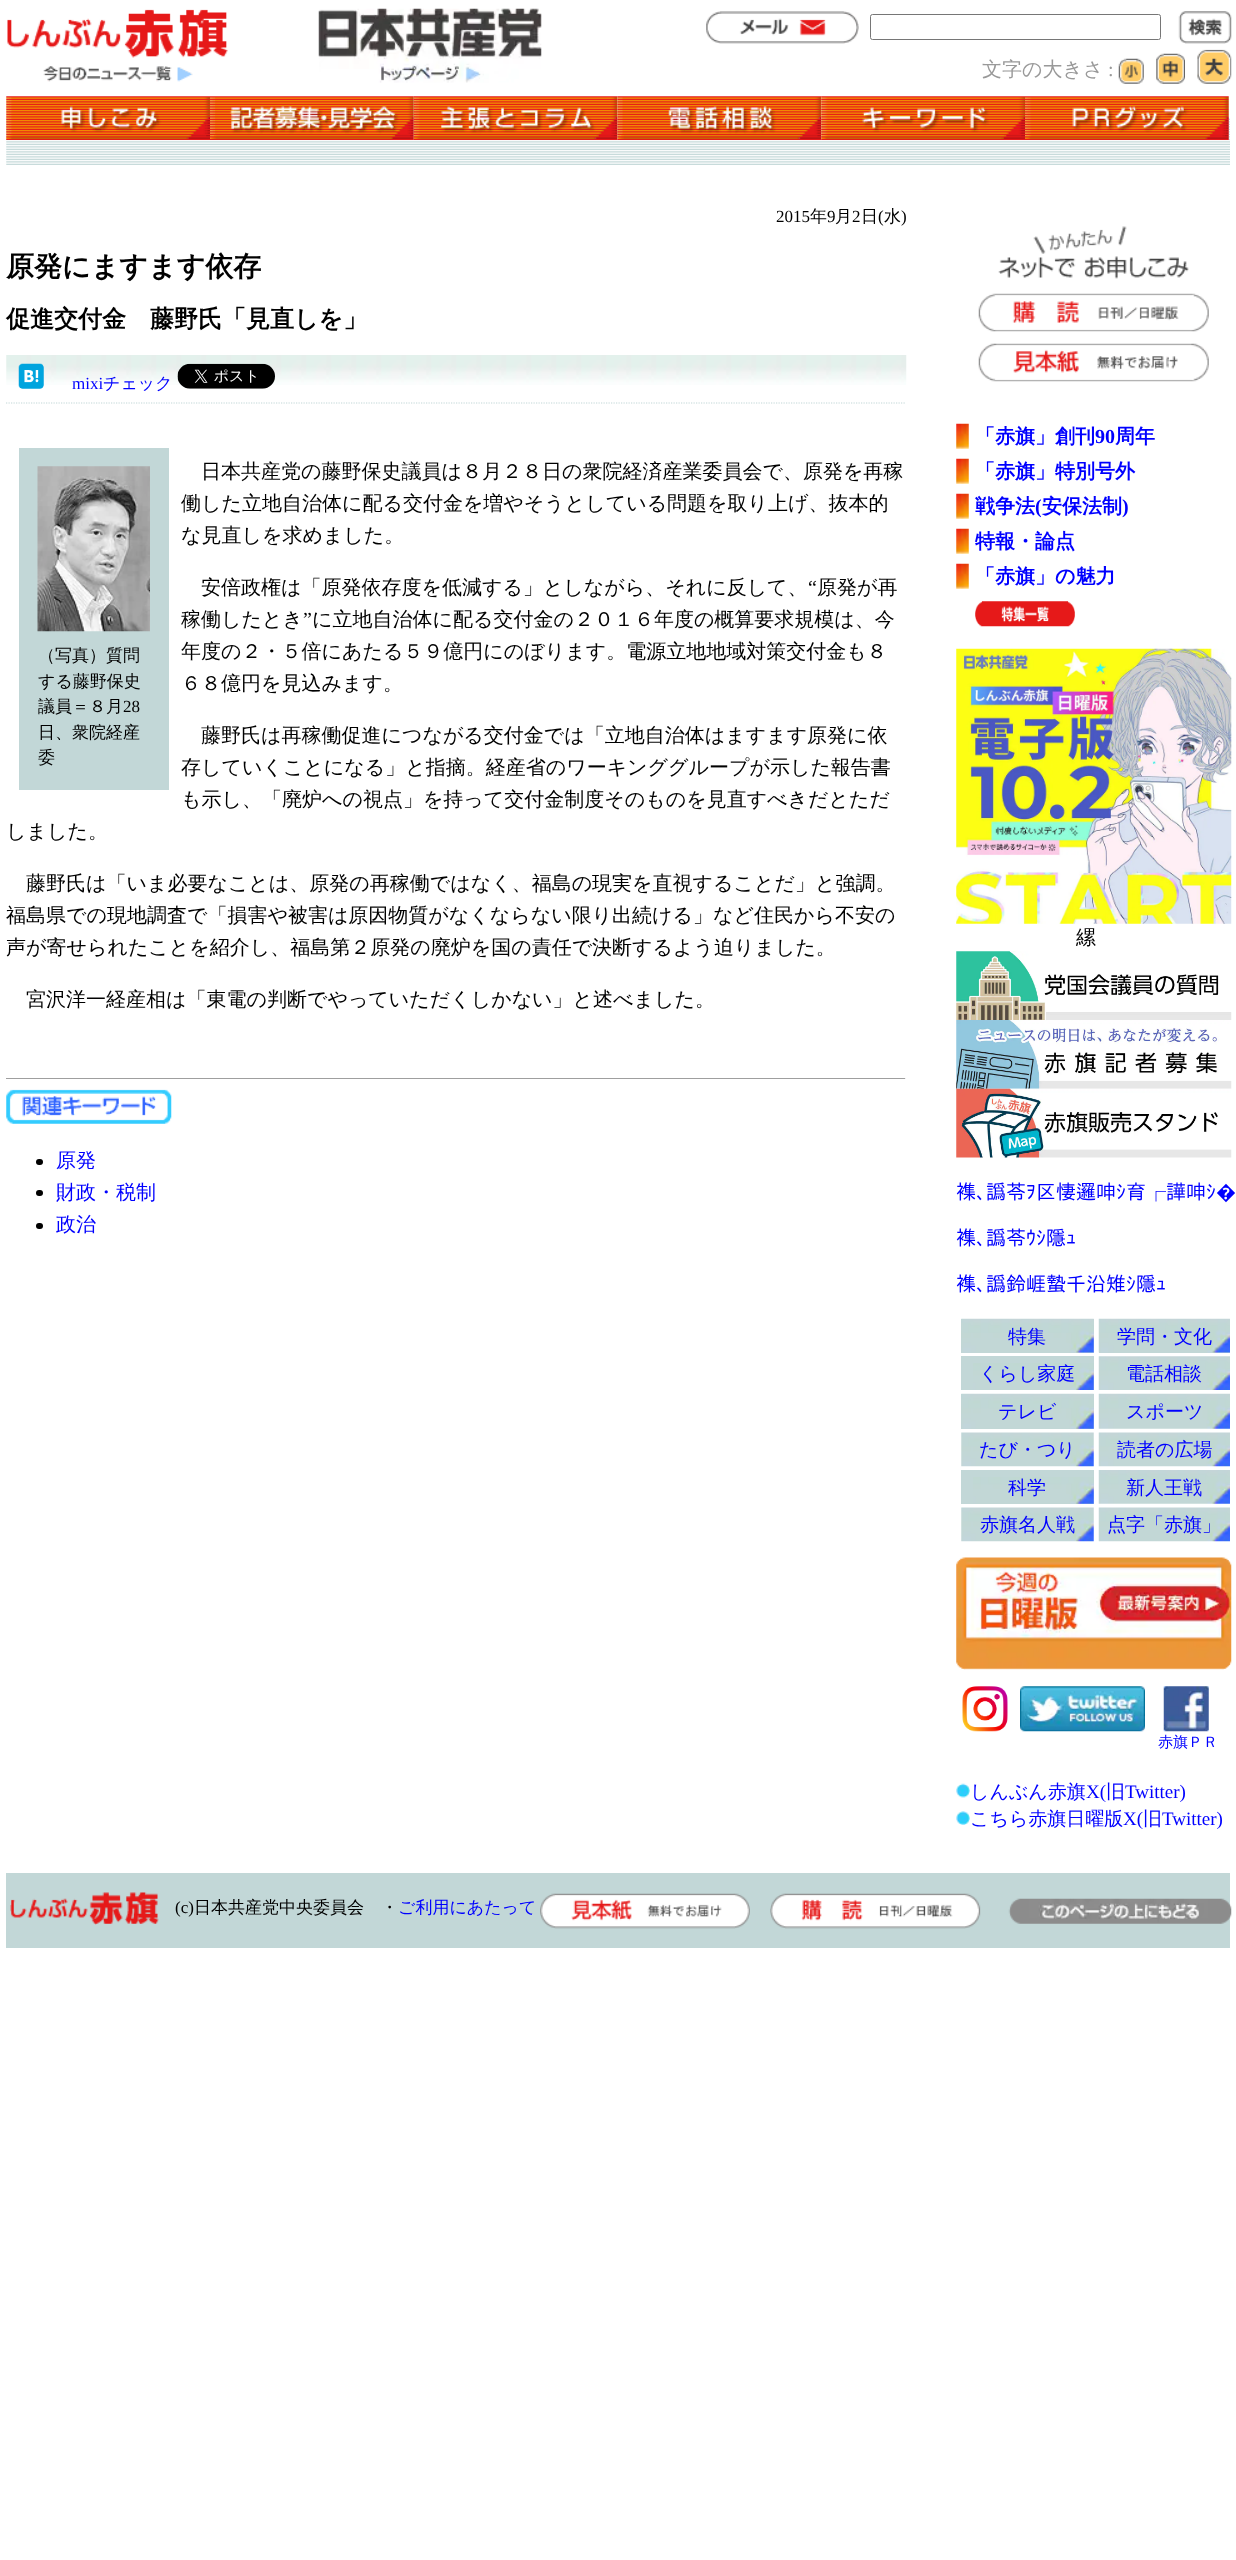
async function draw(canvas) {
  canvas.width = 1236
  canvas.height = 2560
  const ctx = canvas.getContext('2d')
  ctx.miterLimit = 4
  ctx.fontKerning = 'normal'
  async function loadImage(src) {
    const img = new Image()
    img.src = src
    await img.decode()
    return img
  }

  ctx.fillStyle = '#fff'
  ctx.fillRect(0, 0, 1236, 2560)
  ctx.drawImage(await loadImage('image0.png'), 6, 0, 1224, 165)
  ctx.drawImage(await loadImage('image1.png'), 6, 9, 222, 74)
  ctx.drawImage(await loadImage('image2.png'), 318, 8, 224, 75)
  ctx.drawImage(await loadImage('image3.png'), 706, 11, 153, 33)
  ctx.beginPath()
  ctx.roundRect(870.5, 14.5, 290, 25, 2)
  ctx.strokeStyle = '#767676'
  ctx.stroke()
  ctx.drawImage(await loadImage('image4.png'), 1178, 11, 54, 33)
  ctx.font = '500 20px WenQuanYi Zen Hei'
  ctx.fillStyle = '#999'
  ctx.fillText('文字の大きさ', 982, 76)
  ctx.font = '20px Liberation Serif'
  ctx.fillText(':', 1108, 76)
  ctx.drawImage(await loadImage('image5.png'), 1118, 58, 26, 26)
  ctx.drawImage(await loadImage('image6.png'), 1156, 53, 29, 31)
  ctx.drawImage(await loadImage('image7.png'), 1197, 49, 35, 35)
  ctx.drawImage(await loadImage('image8.png'), 6, 96, 204, 44)
  ctx.drawImage(await loadImage('image9.png'), 210, 96, 204, 44)
  ctx.drawImage(await loadImage('image10.png'), 413, 96, 205, 44)
  ctx.drawImage(await loadImage('image11.png'), 617, 96, 205, 44)
  ctx.drawImage(await loadImage('image12.png'), 821, 96, 204, 44)
  ctx.drawImage(await loadImage('image13.png'), 1025, 96, 204, 44)
  ctx.font = '17px Liberation Serif'
  ctx.fillStyle = '#000'
  ctx.fillText('2015', 776, 222)
  ctx.font = '500 17px WenQuanYi Zen Hei'
  ctx.fillText('年', 810, 222)
  ctx.font = '17px Liberation Serif'
  ctx.fillText('9', 827, 222)
  ctx.font = '500 17px WenQuanYi Zen Hei'
  ctx.fillText('月', 835, 222)
  ctx.font = '17px Liberation Serif'
  ctx.fillText('2', 852, 222)
  ctx.font = '500 17px WenQuanYi Zen Hei'
  ctx.fillText('日', 861, 222)
  ctx.font = '17px Liberation Serif'
  ctx.fillText('(', 878, 222)
  ctx.font = '500 17px WenQuanYi Zen Hei'
  ctx.fillText('水', 884, 222)
  ctx.font = '17px Liberation Serif'
  ctx.fillText(')', 901, 222)
  ctx.font = 'bold 28px WenQuanYi Zen Hei'
  ctx.fillText('原発にますます依存', 6, 276)
  ctx.font = 'bold 24px WenQuanYi Zen Hei'
  ctx.fillText('促進交付金　藤野氏「見直しを」', 6, 327)
  ctx.drawImage(await loadImage('image14.png'), 6, 355, 901, 30)
  ctx.beginPath()
  ctx.moveTo(6, 403)
  ctx.lineTo(906, 403)
  ctx.strokeStyle = '#c2d7d7'
  ctx.lineWidth = 1.2
  ctx.setLineDash([1.25, 1.25])
  ctx.stroke()
  ctx.drawImage(await loadImage('image15.png'), 18, 363, 26, 26)
  ctx.font = '17px Liberation Serif'
  ctx.fillStyle = '#00f'
  ctx.fillText('mixi', 72, 389)
  ctx.font = '500 17px WenQuanYi Zen Hei'
  ctx.fillText('チェック', 103, 389)
  ctx.drawImage(await loadImage('image16.png'), 177, 363, 98, 26)
  ctx.font = '500 20px WenQuanYi Zen Hei'
  ctx.fillStyle = '#000'
  ctx.fillText('日本共産党の藤野保史議員は８月２８日の衆院経済産業委員会で、原発を再稼', 201, 478)
  ctx.fillText('働した立地自治体に配る交付金を増やそうとしている問題を取り上げ、抜本的', 181, 510)
  ctx.fillText('な見直しを求めました。', 181, 542)
  ctx.fillStyle = '#c2d7d7'
  ctx.fillRect(19, 448, 150, 342)
  ctx.drawImage(await loadImage('image17.png'), 37, 466, 113, 166)
  ctx.font = '500 17px WenQuanYi Zen Hei'
  ctx.fillStyle = '#000'
  ctx.fillText('（写真）質問', 38, 661)
  ctx.fillText('する藤野保史', 38, 687)
  ctx.fillText('議員＝８月', 38, 712)
  ctx.font = '17px Liberation Serif'
  ctx.fillText('28', 123, 712)
  ctx.font = '500 17px WenQuanYi Zen Hei'
  ctx.fillText('日、衆院経産', 38, 738)
  ctx.fillText('委', 38, 763)
  ctx.font = '500 20px WenQuanYi Zen Hei'
  ctx.fillText('安倍政権は「原発依存度を低減する」としながら、それに反して、', 201, 594)
  ctx.font = '20px Liberation Serif'
  ctx.fillText('“', 808, 594)
  ctx.font = '500 20px WenQuanYi Zen Hei'
  ctx.fillText('原発が再', 817, 594)
  ctx.fillText('稼働したとき', 181, 626)
  ctx.font = '20px Liberation Serif'
  ctx.fillText('”', 303, 626)
  ctx.font = '500 20px WenQuanYi Zen Hei'
  ctx.fillText('に立地自治体に配る交付金の２０１６年度の概算要求規模は、今', 312, 626)
  ctx.fillText('年度の２・５倍にあたる５９億円にのぼります。電源立地地域対策交付金も８', 181, 658)
  ctx.fillText('６８億円を見込みます。', 181, 690)
  ctx.fillText('藤野氏は再稼働促進につながる交付金では「立地自治体はますます原発に依', 201, 742)
  ctx.fillText('存していくことになる」と指摘。経産省のワーキンググループが示した報告書', 181, 774)
  ctx.fillText('も示し、「廃炉への視点」を持って交付金制度そのものを見直すべきだとただ', 181, 806)
  ctx.fillText('しました。', 6, 838)
  ctx.fillText('藤野氏は「いま必要なことは、原発の再稼働ではなく、福島の現実を直視することだ」と強調。', 26, 890)
  ctx.fillText('福島県での現地調査で「損害や被害は原因物質がなくならない限り出続ける」など住民から不安の', 6, 922)
  ctx.fillText('声が寄せられたことを紹介し、福島第２原発の廃炉を国の責任で決断するよう迫りました。', 6, 954)
  ctx.fillText('宮沢洋一経産相は「東電の判断でやっていただくしかない」と述べました。', 26, 1006)
  ctx.fillStyle = '#9f9f9f'
  ctx.fillRect(6, 1078, 900, 1)
  ctx.fillStyle = '#eee'
  ctx.fillRect(905, 1078, 1, 1)
  ctx.drawImage(await loadImage('image18.png'), 6, 1089, 166, 35)
  ctx.fillStyle = '#000'
  ctx.beginPath()
  ctx.roundRect(36, 1159, 7, 6, 3)
  ctx.fill()
  ctx.fillStyle = '#00f'
  ctx.fillText('原発', 56, 1167)
  ctx.fillStyle = '#000'
  ctx.beginPath()
  ctx.roundRect(36, 1190, 7, 6, 3)
  ctx.fill()
  ctx.fillStyle = '#00f'
  ctx.fillText('財政・税制', 56, 1199)
  ctx.fillStyle = '#000'
  ctx.beginPath()
  ctx.roundRect(36, 1223, 7, 6, 3)
  ctx.fill()
  ctx.fillStyle = '#00f'
  ctx.fillText('政治', 56, 1231)
  ctx.drawImage(await loadImage('image19.png'), 998, 226, 191, 53)
  ctx.drawImage(await loadImage('image20.png'), 978, 293, 231, 39)
  ctx.drawImage(await loadImage('image21.png'), 978, 343, 231, 39)
  ctx.drawImage(await loadImage('image22.png'), 956, 423, 13, 26)
  ctx.font = 'bold 20px WenQuanYi Zen Hei'
  ctx.fillText('「赤旗」創刊', 975, 443)
  ctx.font = 'bold 20px Liberation Serif'
  ctx.fillText('90', 1095, 443)
  ctx.font = 'bold 20px WenQuanYi Zen Hei'
  ctx.fillText('周年', 1115, 443)
  ctx.drawImage(await loadImage('image22.png'), 956, 458, 13, 26)
  ctx.fillText('「赤旗」特別号外', 975, 478)
  ctx.drawImage(await loadImage('image22.png'), 956, 493, 13, 26)
  ctx.fillText('戦争法', 975, 513)
  ctx.font = 'bold 20px Liberation Serif'
  ctx.fillText('(', 1035, 513)
  ctx.font = 'bold 20px WenQuanYi Zen Hei'
  ctx.fillText('安保法制', 1042, 513)
  ctx.font = 'bold 20px Liberation Serif'
  ctx.fillText(')', 1122, 513)
  ctx.drawImage(await loadImage('image22.png'), 956, 528, 13, 26)
  ctx.font = 'bold 20px WenQuanYi Zen Hei'
  ctx.fillText('特報・論点', 975, 548)
  ctx.drawImage(await loadImage('image22.png'), 956, 563, 13, 26)
  ctx.fillText('「赤旗」の魅力', 975, 583)
  ctx.drawImage(await loadImage('image23.png'), 975, 601, 100, 26)
  ctx.drawImage(await loadImage('image24.png'), 956, 648, 276, 276)
  ctx.font = '500 20px WenQuanYi Zen Hei'
  ctx.fillStyle = '#000'
  ctx.fillText('縲', 1076, 944)
  ctx.drawImage(await loadImage('image25.png'), 956, 951, 276, 69)
  ctx.drawImage(await loadImage('image26.png'), 956, 1020, 276, 69)
  ctx.drawImage(await loadImage('image27.png'), 956, 1088, 276, 70)
  ctx.font = '20px IPAPGothic'
  ctx.fillStyle = '#00f'
  ctx.fillText('襍､譌苓ｦ区悽邏呻ｼ育┌譁呻ｼ', 956, 1199)
  ctx.font = '20px Noto Sans'
  ctx.fillText('�', 1216, 1199)
  ctx.font = '20px IPAPGothic'
  ctx.fillText('襍､譌苓ｳｼ隱ｭ', 956, 1245)
  ctx.fillText('襍､譌鈴崕蟄千沿雉ｼ隱ｭ', 956, 1291)
  ctx.fillStyle = '#c2d7d7'
  ctx.fillRect(961, 1319, 133, 34)
  ctx.drawImage(await loadImage('image28.png'), 961, 1318, 133, 35)
  ctx.font = '500 19px WenQuanYi Zen Hei'
  ctx.fillStyle = '#00f'
  ctx.fillText('特集', 1008, 1343)
  ctx.fillStyle = '#c2d7d7'
  ctx.fillRect(1099, 1352, 131, 1)
  ctx.drawImage(await loadImage('image29.png'), 1098, 1318, 132, 35)
  ctx.fillStyle = '#00f'
  ctx.fillText('学問・文化', 1117, 1343)
  ctx.fillStyle = '#c2d7d7'
  ctx.fillRect(961, 1356, 133, 34)
  ctx.drawImage(await loadImage('image30.png'), 973, 1363, 121, 27)
  ctx.fillStyle = '#00f'
  ctx.fillText('くらし家庭', 979, 1380)
  ctx.drawImage(await loadImage('image31.png'), 1098, 1356, 132, 34)
  ctx.fillText('電話相談', 1126, 1380)
  ctx.fillStyle = '#c2d7d7'
  ctx.fillRect(961, 1394, 133, 35)
  ctx.drawImage(await loadImage('image32.png'), 961, 1393, 133, 36)
  ctx.fillStyle = '#00f'
  ctx.fillText('テレビ', 998, 1418)
  ctx.drawImage(await loadImage('image33.png'), 1098, 1393, 132, 36)
  ctx.fillText('スポーツ', 1126, 1418)
  ctx.drawImage(await loadImage('image34.png'), 961, 1432, 133, 35)
  ctx.fillText('たび・つり', 979, 1456)
  ctx.drawImage(await loadImage('image35.png'), 1098, 1432, 132, 35)
  ctx.fillText('読者の広場', 1117, 1456)
  ctx.fillStyle = '#c2d7d7'
  ctx.fillRect(961, 1470, 133, 34)
  ctx.drawImage(await loadImage('image36.png'), 973, 1477, 121, 27)
  ctx.fillStyle = '#00f'
  ctx.fillText('科学', 1008, 1494)
  ctx.drawImage(await loadImage('image37.png'), 1098, 1470, 132, 34)
  ctx.fillText('新人王戦', 1126, 1494)
  ctx.drawImage(await loadImage('image34.png'), 961, 1507, 133, 35)
  ctx.fillText('赤旗名人戦', 980, 1531)
  ctx.drawImage(await loadImage('image35.png'), 1098, 1507, 132, 35)
  ctx.fillText('点字「赤旗」', 1107, 1531)
  ctx.drawImage(await loadImage('image38.png'), 956, 1557, 276, 113)
  ctx.drawImage(await loadImage('image39.png'), 962, 1686, 46, 46)
  ctx.drawImage(await loadImage('image40.png'), 1020, 1686, 125, 46)
  ctx.drawImage(await loadImage('image41.png'), 1163, 1686, 46, 46)
  ctx.font = '500 15px WenQuanYi Zen Hei'
  ctx.fillText('赤旗ＰＲ', 1158, 1747)
  ctx.drawImage(await loadImage('image42.png'), 956, 1783, 14, 15)
  ctx.font = '500 19px WenQuanYi Zen Hei'
  ctx.fillText('しんぶん赤旗', 970, 1798)
  ctx.font = '19px Liberation Serif'
  ctx.fillText('X(', 1086, 1798)
  ctx.font = '500 19px WenQuanYi Zen Hei'
  ctx.fillText('旧', 1106, 1798)
  ctx.font = '19px Liberation Serif'
  ctx.fillText('Twitter)', 1125, 1798)
  ctx.drawImage(await loadImage('image43.png'), 956, 1811, 14, 14)
  ctx.font = '500 19px WenQuanYi Zen Hei'
  ctx.fillText('こちら赤旗日曜版', 970, 1825)
  ctx.font = '19px Liberation Serif'
  ctx.fillText('X(', 1123, 1825)
  ctx.font = '500 19px WenQuanYi Zen Hei'
  ctx.fillText('旧', 1143, 1825)
  ctx.font = '19px Liberation Serif'
  ctx.fillText('Twitter)', 1162, 1825)
  ctx.fillStyle = '#c2d7d7'
  ctx.fillRect(6, 1873, 1224, 75)
  ctx.drawImage(await loadImage('image44.png'), 10, 1892, 149, 33)
  ctx.font = '17px Liberation Serif'
  ctx.fillStyle = '#000'
  ctx.fillText('(c)', 175, 1913)
  ctx.font = '500 17px WenQuanYi Zen Hei'
  ctx.fillText('日本共産党中央委員会', 194, 1913)
  ctx.fillText('・', 381, 1913)
  ctx.fillStyle = '#00f'
  ctx.fillText('ご利用にあたって', 398, 1913)
  ctx.drawImage(await loadImage('image45.png'), 540, 1893, 210, 36)
  ctx.drawImage(await loadImage('image46.png'), 770, 1893, 211, 36)
  ctx.drawImage(await loadImage('image47.png'), 1008, 1898, 224, 26)
}

draw(document.querySelector('canvas'))
